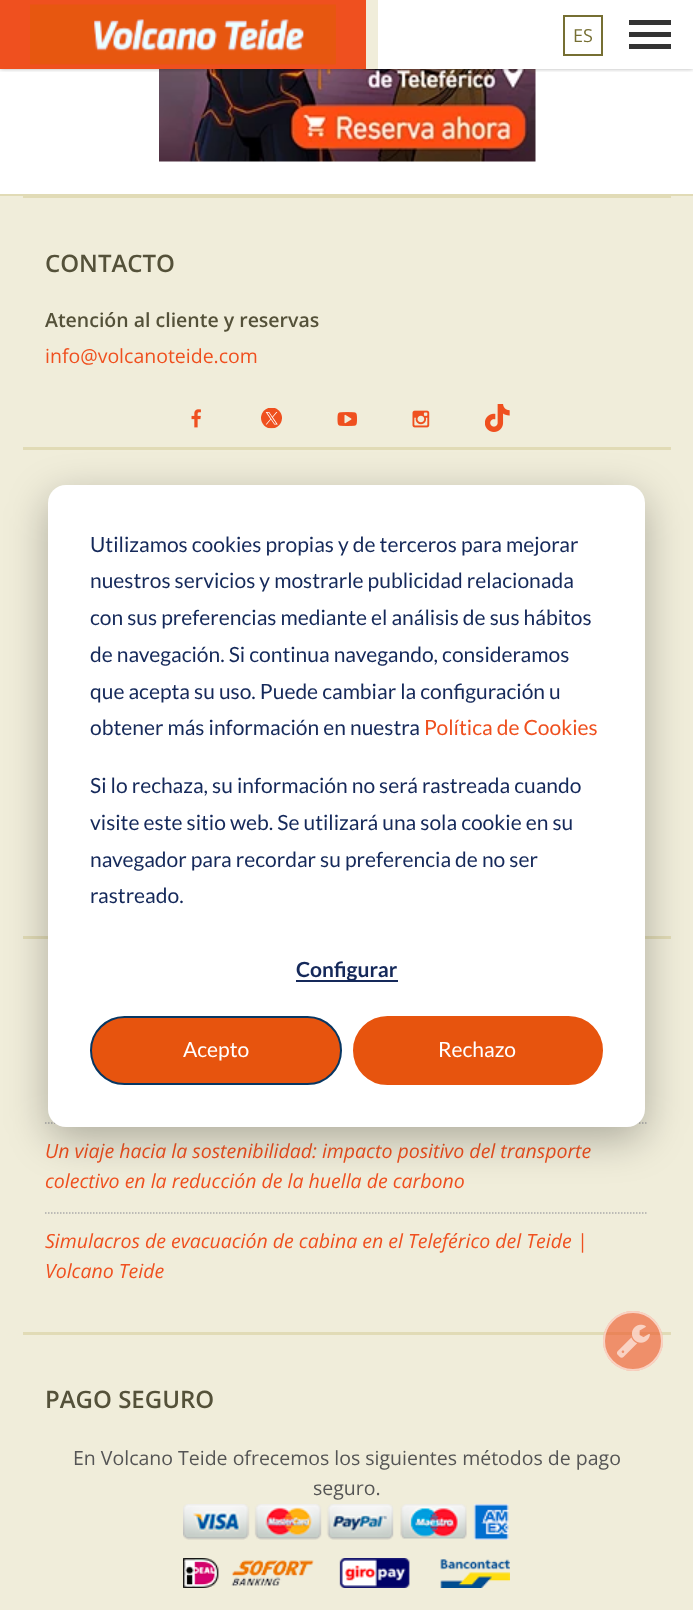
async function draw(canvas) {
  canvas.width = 693
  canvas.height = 1610
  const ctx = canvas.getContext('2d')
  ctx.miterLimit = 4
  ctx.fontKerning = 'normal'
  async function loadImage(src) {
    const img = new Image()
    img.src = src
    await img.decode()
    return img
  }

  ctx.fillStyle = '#fff'
  ctx.fillRect(0, 0, 693, 1610)
  ctx.fillStyle = '#ef501f'
  ctx.fillRect(0, 0, 366, 69)
  ctx.fillStyle = '#f0edda'
  ctx.fillRect(366, 0, 12, 69)
  ctx.drawImage(await loadImage('image1.png'), 159, 69, 377, 93)
  ctx.save()
  ctx.beginPath()
  ctx.rect(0, 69, 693, 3)
  ctx.clip()
  ctx.fillStyle = '#0000004d'
  ctx.filter = 'blur(2px)'
  ctx.beginPath()
  ctx.rect(0, 0, 693, 69)
  ctx.fill()
  ctx.filter = 'none'
  ctx.restore()
  ctx.drawImage(await loadImage('image0.png'), 30, 4, 306, 61)
  ctx.fillStyle = '#333'
  ctx.fillRect(629, 20, 42, 5)
  ctx.fillRect(629, 32, 42, 5)
  ctx.fillRect(629, 44, 42, 5)
  ctx.strokeStyle = '#766f33'
  ctx.lineWidth = 2
  ctx.strokeRect(564, 16, 38, 39)
  ctx.font = '18px Open Sans'
  ctx.fillStyle = '#766f33'
  ctx.fillText('ES', 573, 42)
  ctx.fillStyle = '#f0edda'
  ctx.fillRect(0, 196, 693, 1414)
  ctx.fillStyle = '#e1dbb6'
  ctx.fillRect(0, 194, 693, 2)
  ctx.fillRect(23, 196, 648, 2)
  ctx.font = '600 24px Open Sans'
  ctx.fillStyle = '#545139'
  ctx.fillText('CONTACTO', 45, 272)
  ctx.font = '600 19.5px Open Sans'
  ctx.fillText('Atención al cliente y reservas', 45, 327)
  ctx.font = '19.5px Open Sans'
  ctx.fillStyle = '#ef501f'
  ctx.fillText('info@volcanoteide.com', 45, 363)
  ctx.drawImage(await loadImage('image2.png'), 191, 409, 10, 19)
  ctx.drawImage(await loadImage('image3.png'), 261, 408, 21, 21)
  ctx.drawImage(await loadImage('image4.png'), 337, 412, 20, 14)
  ctx.drawImage(await loadImage('image5.png'), 412, 410, 18, 18)
  ctx.drawImage(await loadImage('image6.png'), 485, 404, 25, 28)
  ctx.fillStyle = '#e1dbb6'
  ctx.fillRect(23, 447, 648, 3)
  ctx.fillRect(23, 936, 648, 3)
  ctx.beginPath()
  ctx.moveTo(45, 1123)
  ctx.lineTo(648, 1123)
  ctx.strokeStyle = '#aaa'
  ctx.lineWidth = 1.5
  ctx.setLineDash([1.5, 1.5])
  ctx.stroke()
  ctx.beginPath()
  ctx.moveTo(45, 1213)
  ctx.lineTo(648, 1213)
  ctx.stroke()
  ctx.font = 'italic 19.5px Open Sans'
  ctx.fillStyle = '#ef501f'
  ctx.fillText('Un viaje hacia la sostenibilidad: impacto positivo del transporte', 45, 1158)
  ctx.fillText('colectivo en la reducción de la huella de carbono', 45, 1188)
  ctx.fillText('Simulacros de evacuación de cabina en el Teleférico del Teide |', 45, 1248)
  ctx.fillText('Volcano Teide', 45, 1278)
  ctx.fillStyle = '#e1dbb6'
  ctx.fillRect(23, 1332, 648, 3)
  ctx.font = '600 24px Open Sans'
  ctx.fillStyle = '#545139'
  ctx.fillText('PAGO SEGURO', 45, 1408)
  ctx.font = '19.5px Open Sans'
  ctx.fillStyle = '#555'
  ctx.fillText('En Volcano Teide ofrecemos los siguientes métodos de pago', 73, 1465)
  ctx.fillText('seguro.', 313, 1495)
  ctx.drawImage(await loadImage('image7.png'), 183, 1504, 326, 36)
  ctx.drawImage(await loadImage('image8.png'), 183, 1558, 327, 30)
  ctx.fillStyle = '#ef501f99'
  ctx.beginPath()
  ctx.arc(633, 1341, 30, 0, 2 * Math.PI)
  ctx.fill()
  ctx.beginPath()
  ctx.arc(633, 1341, 29, 0, 2 * Math.PI)
  ctx.strokeStyle = '#ffffff99'
  ctx.lineWidth = 2
  ctx.setLineDash([])
  ctx.stroke()
  ctx.drawImage(await loadImage('image9.png'), 617, 1324, 33, 34)
  ctx.fillStyle = '#00000047'
  ctx.filter = 'blur(21px)'
  ctx.beginPath()
  ctx.roundRect(48, 497, 597, 642, 18)
  ctx.fill()
  ctx.filter = 'none'
  ctx.fillStyle = '#fff'
  ctx.beginPath()
  ctx.roundRect(48, 485, 597, 642, 18)
  ctx.fill()
  ctx.font = '21px Lato'
  ctx.fillStyle = '#15295a'
  ctx.fillText('Utilizamos cookies propias y de terceros para mejorar', 90, 552)
  ctx.fillText('nuestros servicios y mostrarle publicidad relacionada', 90, 588)
  ctx.fillText('con sus preferencias mediante el análisis de sus hábitos', 90, 625)
  ctx.fillText('de navegación. Si continua navegando, consideramos', 90, 662)
  ctx.fillText('que acepta su uso. Puede cambiar la configuración u', 90, 699)
  ctx.fillText('obtener más información en nuestra', 90, 735)
  ctx.fillStyle = '#ef501f'
  ctx.fillText('Política de Cookies', 424, 735)
  ctx.fillStyle = '#15295a'
  ctx.fillText('Si lo rechaza, su información no será rastreada cuando', 90, 793)
  ctx.fillText('visite este sitio web. Se utilizará una sola cookie en su', 90, 830)
  ctx.fillText('navegador para recordar su preferencia de no ser', 90, 867)
  ctx.fillText('rastreado.', 90, 903)
  ctx.fillRect(296, 980, 102, 2)
  ctx.font = 'bold 21px Lato'
  ctx.fillText('Configurar', 296, 977)
  ctx.fillStyle = '#e7540e'
  ctx.beginPath()
  ctx.roundRect(91, 1017, 250, 67, 33.5)
  ctx.fill()
  ctx.strokeStyle = '#073763'
  ctx.stroke()
  ctx.font = '21px Lato'
  ctx.fillStyle = '#fff'
  ctx.fillText('Acepto', 183, 1057)
  ctx.fillStyle = '#e7540e'
  ctx.beginPath()
  ctx.roundRect(354, 1017, 248, 67, 33.5)
  ctx.fill()
  ctx.strokeStyle = '#e7540e'
  ctx.stroke()
  ctx.fillStyle = '#fff'
  ctx.fillText('Rechazo', 438, 1057)
}

draw(document.querySelector('canvas'))
